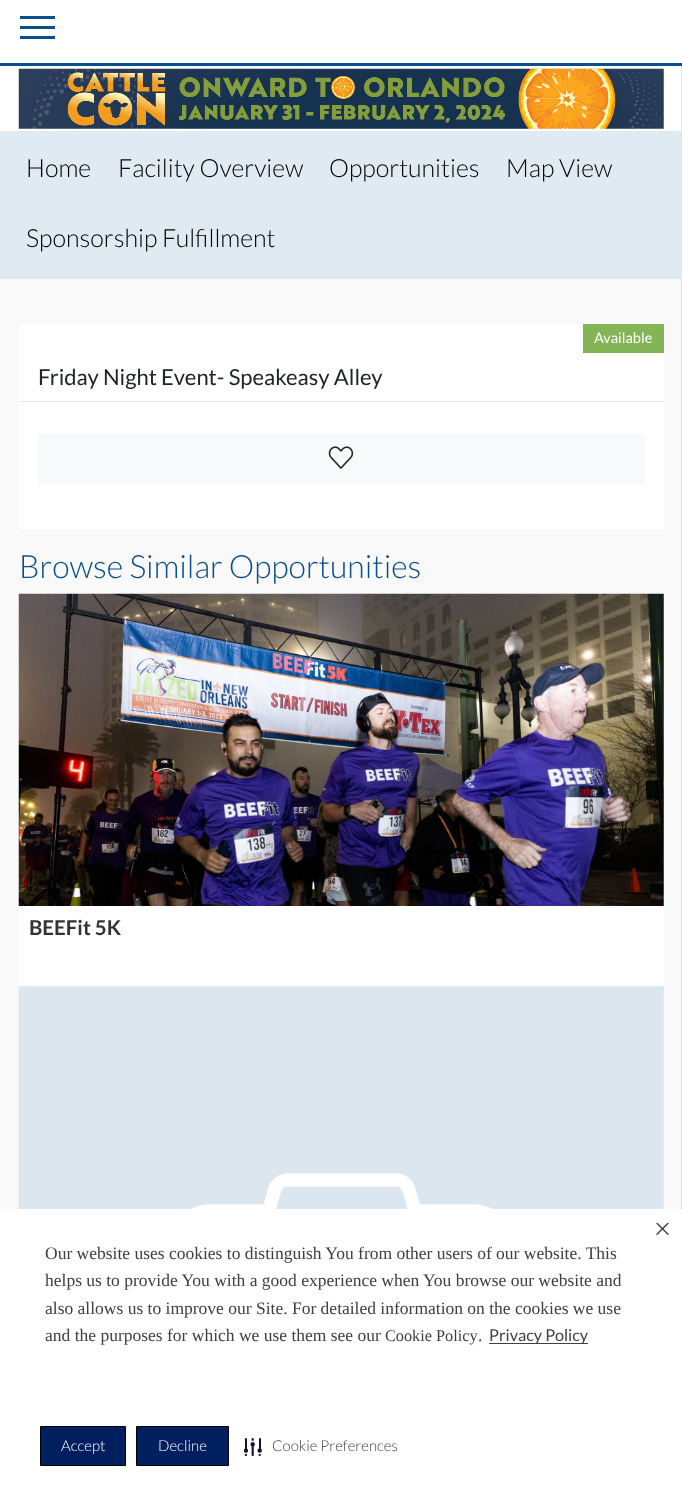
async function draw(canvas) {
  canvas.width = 682
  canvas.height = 1506
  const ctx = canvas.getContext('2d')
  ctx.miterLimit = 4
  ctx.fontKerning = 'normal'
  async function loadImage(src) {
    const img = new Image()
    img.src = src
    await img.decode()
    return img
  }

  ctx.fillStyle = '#f9f9f9'
  ctx.fillRect(0, 0, 682, 1506)
  ctx.fillStyle = '#fff'
  ctx.fillRect(0, 0, 682, 63)
  ctx.fillStyle = '#0a4e8b'
  ctx.fillRect(0, 63, 682, 3)
  ctx.fillRect(20, 16, 35, 3)
  ctx.fillRect(20, 26, 35, 3)
  ctx.fillRect(20, 36, 35, 3)
  ctx.fillStyle = '#fff'
  ctx.fillRect(0, 66, 681, 65)
  ctx.drawImage(await loadImage('image0.png'), 18, 68, 646, 61)
  ctx.fillStyle = '#e2e2e2'
  ctx.fillRect(681, 66, 1, 1143)
  ctx.fillStyle = '#dfeaf2'
  ctx.fillRect(0, 131, 681, 148)
  ctx.font = '300 25px Lato'
  ctx.fillStyle = '#000'
  ctx.fillText('Home', 26, 177)
  ctx.fillText('Facility Overview', 118, 177)
  ctx.fillText('Opportunities', 329, 177)
  ctx.fillText('Map View', 506, 177)
  ctx.fillText('Sponsorship Fulfillment', 26, 247)
  ctx.fillStyle = '#fff'
  ctx.fillRect(19, 324, 645, 205)
  ctx.fillStyle = '#83b455'
  ctx.fillRect(583, 324, 81, 29)
  ctx.font = '14.5px Lato'
  ctx.fillStyle = '#fff'
  ctx.fillText('Available', 594, 343)
  ctx.font = '22px Lato'
  ctx.fillStyle = '#212529'
  ctx.fillText('Friday Night Event- Speakeasy Alley', 38, 385)
  ctx.fillStyle = '#e6e6e6'
  ctx.fillRect(19, 401, 645, 1)
  ctx.fillStyle = '#f8f9fa'
  ctx.beginPath()
  ctx.roundRect(38, 434, 607, 51, 2.5)
  ctx.fill()
  ctx.drawImage(await loadImage('image1.png'), 328, 446, 26, 23)
  ctx.font = '300 32px Lato'
  ctx.fillStyle = '#0a4e8b'
  ctx.fillText('Browse Similar Opportunities', 19, 578)
  ctx.drawImage(await loadImage('image2.png'), 18, 593, 646, 314)
  ctx.fillStyle = '#fff'
  ctx.fillRect(19, 906, 645, 80)
  ctx.font = 'bold 20.5px Lato'
  ctx.fillStyle = '#333'
  ctx.fillText('BEEFit 5K', 29, 935)
  ctx.drawImage(await loadImage('image3.png'), 18, 986, 646, 223)
  ctx.fillStyle = '#fff'
  ctx.fillRect(0, 1209, 682, 297)
  ctx.font = '17.5px Liberation Serif'
  ctx.fillStyle = '#404040'
  ctx.fillText('Our website uses cookies to distinguish You from other users of our website. This', 45, 1259)
  ctx.fillText('helps us to provide You with a good experience when You browse our website and', 45, 1286)
  ctx.fillText('also allows us to improve our Site. For detailed information on the cookies we use', 45, 1314)
  ctx.fillText('and the purposes for which we use them see our', 45, 1341)
  ctx.font = '16.25px Liberation Serif'
  ctx.fillText('Cookie Policy', 385, 1341)
  ctx.font = '17.5px Liberation Serif'
  ctx.fillText('.', 478, 1341)
  ctx.fillRect(489, 1343, 99, 1)
  ctx.font = '16.25px Lato'
  ctx.fillText('Privacy Policy', 489, 1341)
  ctx.drawImage(await loadImage('image4.png'), 656, 1223, 13, 12)
  ctx.fillStyle = '#001f5f'
  ctx.beginPath()
  ctx.rect(40.5, 1426.5, 85, 39)
  ctx.fill()
  ctx.strokeStyle = '#000'
  ctx.stroke()
  ctx.font = '300 15px Lato'
  ctx.fillStyle = '#fff'
  ctx.fillText('Accept', 61, 1451)
  ctx.fillStyle = '#001f5f'
  ctx.beginPath()
  ctx.rect(136.5, 1426.5, 92, 39)
  ctx.fill()
  ctx.stroke()
  ctx.fillStyle = '#fff'
  ctx.fillText('Decline', 158, 1451)
  ctx.drawImage(await loadImage('image5.png'), 244, 1438, 18, 18)
  ctx.fillStyle = '#404040'
  ctx.fillText('Cookie Preferences', 272, 1451)
}

draw(document.querySelector('canvas'))
